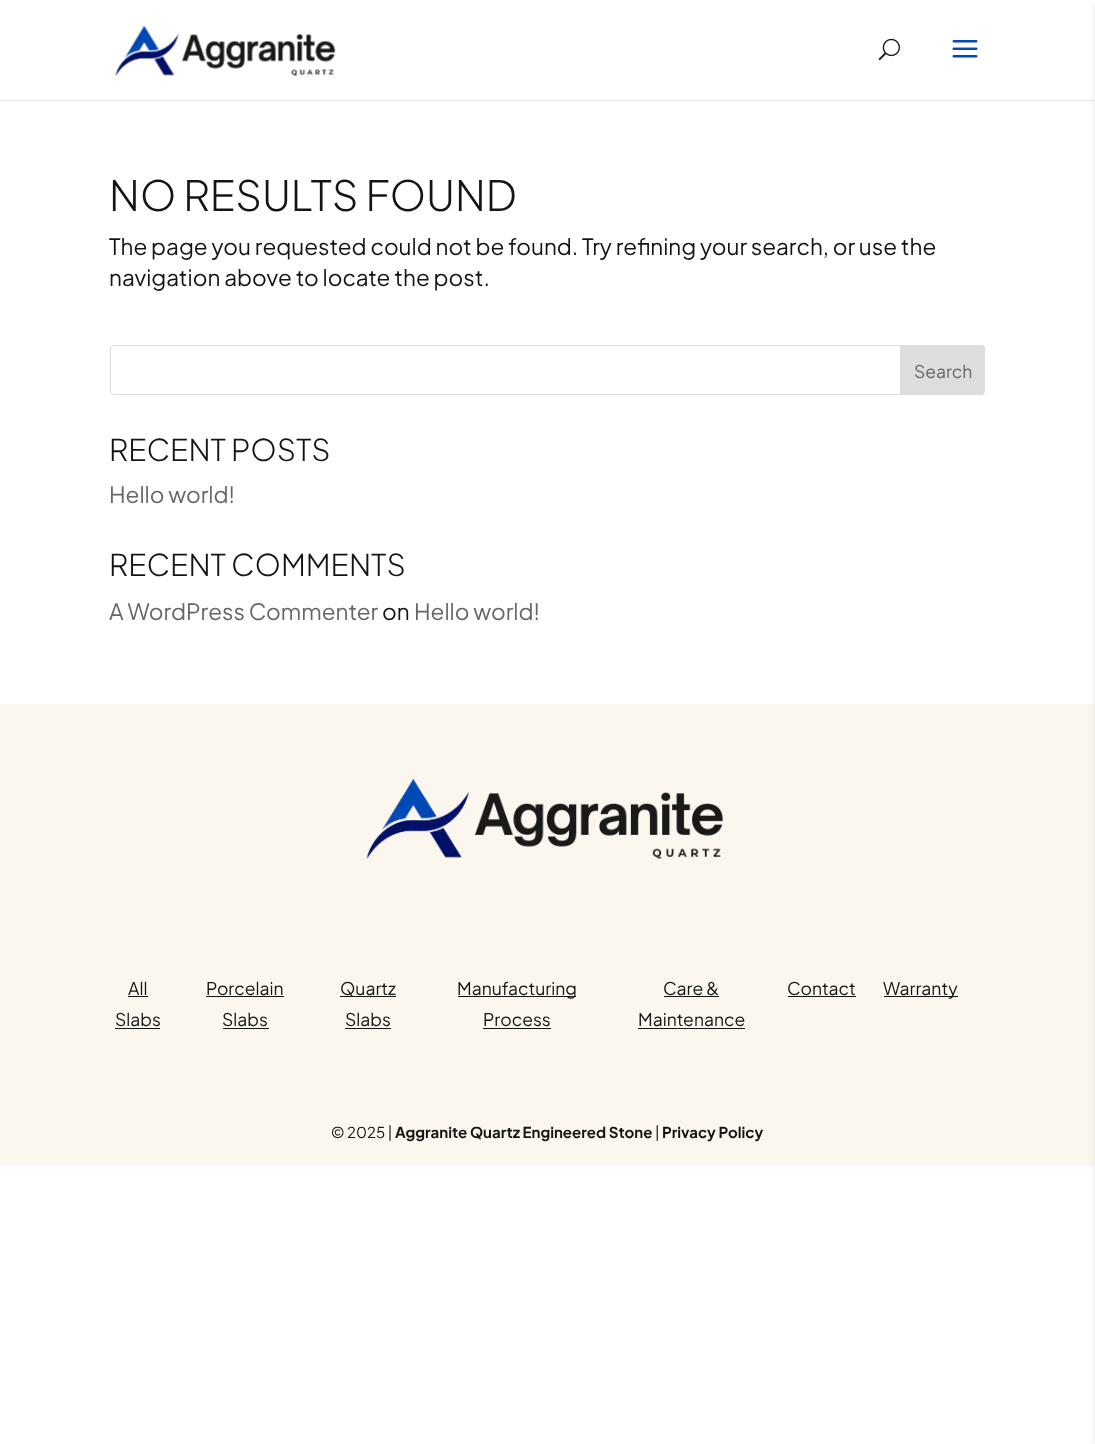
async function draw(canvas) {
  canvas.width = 1095
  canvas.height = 1444
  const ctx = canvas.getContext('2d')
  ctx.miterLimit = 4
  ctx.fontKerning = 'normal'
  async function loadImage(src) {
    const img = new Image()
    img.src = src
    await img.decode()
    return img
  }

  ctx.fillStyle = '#fff'
  ctx.fillRect(0, 0, 1095, 1444)
  ctx.fillStyle = '#e6e6e6'
  ctx.fillRect(0, 100, 1095, 1)
  ctx.drawImage(await loadImage('image0.png'), 115, 25, 221, 52)
  ctx.drawImage(await loadImage('image1.png'), 878, 38, 22, 23)
  ctx.drawImage(await loadImage('image2.png'), 952, 40, 26, 18)
  ctx.fillStyle = '#fbf7ee'
  ctx.fillRect(0, 704, 1095, 462)
  ctx.fillStyle = '#0000001a'
  ctx.filter = 'blur(3px)'
  ctx.beginPath()
  ctx.rect(1095, 3, 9, 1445)
  ctx.fill()
  ctx.filter = 'none'
  ctx.font = '300 41.6px Plus Jakarta Sans'
  ctx.fillStyle = '#141414'
  ctx.fillText('NO RESULTS FOUND', 109, 211)
  ctx.font = '22.5px Plus Jakarta Sans'
  ctx.fillText('The page you requested could not be found. Try refining your search, or use the', 109, 255)
  ctx.fillText('navigation above to locate the post.', 109, 286)
  ctx.beginPath()
  ctx.roundRect(110.5, 345.5, 874, 49, 3.5)
  ctx.strokeStyle = '#ddd'
  ctx.stroke()
  ctx.fillStyle = '#ddd'
  ctx.beginPath()
  ctx.roundRect(900.5, 345.5, 84, 49, [0, 3.5, 3.5, 0])
  ctx.fill()
  ctx.stroke()
  ctx.font = '17.5px Plus Jakarta Sans'
  ctx.fillStyle = '#666'
  ctx.fillText('Search', 914, 378)
  ctx.font = '300 30px Plus Jakarta Sans'
  ctx.fillStyle = '#141414'
  ctx.fillText('RECENT POSTS', 109, 461)
  ctx.font = '22.5px Plus Jakarta Sans'
  ctx.fillStyle = '#666'
  ctx.fillText('Hello world!', 109, 503)
  ctx.font = '300 30px Plus Jakarta Sans'
  ctx.fillStyle = '#141414'
  ctx.fillText('RECENT COMMENTS', 109, 576)
  ctx.font = '22.5px Plus Jakarta Sans'
  ctx.fillStyle = '#666'
  ctx.fillText('A WordPress Commenter', 109, 620)
  ctx.fillStyle = '#141414'
  ctx.fillText('on', 382, 620)
  ctx.fillStyle = '#666'
  ctx.fillText('Hello world!', 414, 620)
  ctx.drawImage(await loadImage('image3.png'), 366, 779, 357, 80)
  ctx.font = '17.5px Plus Jakarta Sans'
  ctx.fillStyle = '#141414'
  ctx.fillText('All', 128, 995)
  ctx.fillRect(128, 996, 20, 1)
  ctx.fillText('Slabs', 115, 1026)
  ctx.fillRect(115, 1028, 45, 1)
  ctx.fillText('Porcelain', 206, 995)
  ctx.fillRect(206, 996, 78, 1)
  ctx.fillText('Slabs', 222, 1026)
  ctx.fillRect(223, 1028, 46, 1)
  ctx.fillRect(340, 996, 56, 1)
  ctx.fillText('Quartz', 340, 995)
  ctx.fillText('Slabs', 345, 1026)
  ctx.fillRect(345, 1028, 46, 1)
  ctx.fillRect(458, 996, 118, 1)
  ctx.fillText('Manufacturing', 457, 995)
  ctx.fillText('Process', 483, 1026)
  ctx.fillRect(483, 1028, 68, 1)
  ctx.fillText('Care &', 663, 995)
  ctx.fillRect(664, 996, 55, 1)
  ctx.fillText('Maintenance', 638, 1026)
  ctx.fillRect(638, 1028, 107, 1)
  ctx.fillText('Contact', 787, 995)
  ctx.fillRect(788, 996, 68, 1)
  ctx.fillRect(884, 996, 74, 1)
  ctx.fillText('Warranty', 883, 995)
  ctx.font = '15px Plus Jakarta Sans'
  ctx.fillText('© 2025 |', 331, 1138)
  ctx.font = 'bold 15px Plus Jakarta Sans'
  ctx.fillText('Aggranite Quartz Engineered Stone', 395, 1138)
  ctx.font = '15px Plus Jakarta Sans'
  ctx.fillText('|', 655, 1138)
  ctx.font = 'bold 15px Plus Jakarta Sans'
  ctx.fillText('Privacy Policy', 662, 1138)
}

draw(document.querySelector('canvas'))
